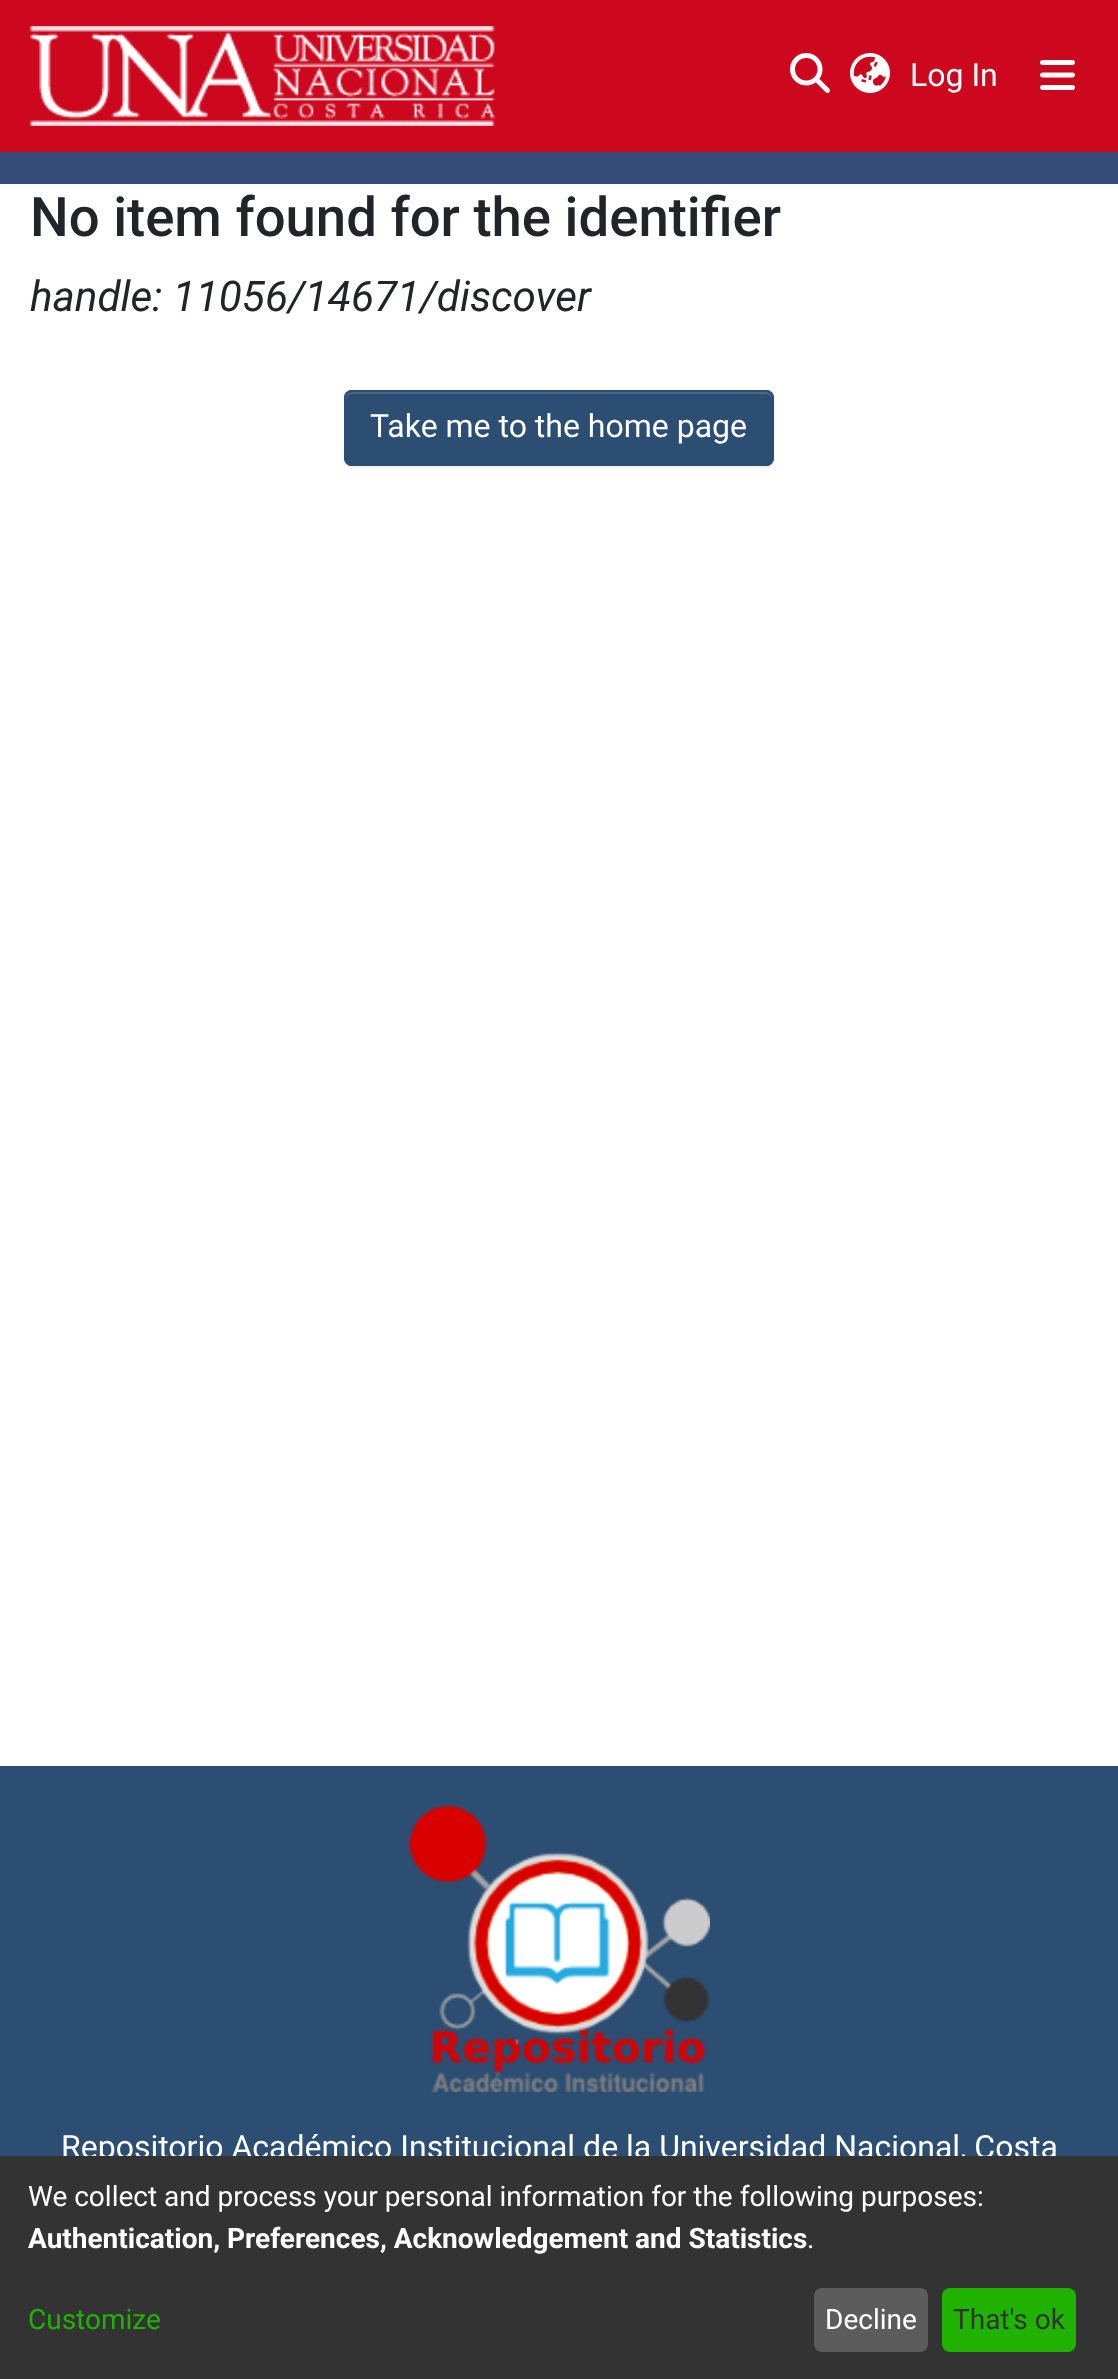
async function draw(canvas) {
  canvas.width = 1118
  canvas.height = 2379
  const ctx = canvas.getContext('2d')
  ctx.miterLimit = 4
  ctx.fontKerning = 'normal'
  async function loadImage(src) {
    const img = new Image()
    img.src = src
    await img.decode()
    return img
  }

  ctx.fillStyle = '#fff'
  ctx.fillRect(0, 0, 1118, 2379)
  ctx.fillStyle = '#cc071e'
  ctx.fillRect(0, 0, 1118, 152)
  ctx.drawImage(await loadImage('image0.png'), 30, 26, 466, 100)
  ctx.drawImage(await loadImage('image1.png'), 790, 53, 40, 40)
  ctx.drawImage(await loadImage('image2.png'), 850, 53, 40, 40)
  ctx.font = '32px Roboto'
  ctx.fillStyle = '#fff'
  ctx.fillText('Log In', 910, 86)
  ctx.drawImage(await loadImage('image3.png'), 1040, 60, 35, 30)
  ctx.fillStyle = '#364c78'
  ctx.fillRect(0, 152, 1118, 32)
  ctx.font = '500 54.5px Roboto'
  ctx.fillStyle = '#212529'
  ctx.fillText('No item found for the identifier', 30, 236)
  ctx.font = 'italic 42.25px Roboto'
  ctx.fillText('handle: 11056/14671/discover', 30, 311)
  ctx.fillStyle = '#00000012'
  ctx.filter = 'blur(1px)'
  ctx.beginPath()
  ctx.roundRect(344, 392, 430, 76, 8)
  ctx.fill()
  ctx.filter = 'none'
  ctx.fillStyle = '#2b4e72'
  ctx.beginPath()
  ctx.roundRect(344, 390, 430, 76, 8)
  ctx.fill()
  ctx.fillStyle = '#4b6987'
  ctx.beginPath()
  ctx.moveTo(352, 394)
  ctx.lineTo(766, 394)
  ctx.bezierCurveTo(769, 394, 772, 397, 772, 400)
  ctx.lineTo(772, 398)
  ctx.bezierCurveTo(772, 395, 769, 392, 766, 392)
  ctx.lineTo(352, 392)
  ctx.bezierCurveTo(349, 392, 346, 395, 346, 398)
  ctx.lineTo(346, 400)
  ctx.bezierCurveTo(346, 397, 349, 394, 352, 394)
  ctx.closePath()
  ctx.fill()
  ctx.beginPath()
  ctx.roundRect(345, 391, 428, 74, 7)
  ctx.strokeStyle = '#2b4e72'
  ctx.lineWidth = 2
  ctx.stroke()
  ctx.font = '32px Roboto'
  ctx.fillStyle = '#fff'
  ctx.fillText('Take me to the home page', 370, 437)
  ctx.fillStyle = '#2b4e72'
  ctx.fillRect(0, 1766, 1118, 390)
  ctx.drawImage(await loadImage('image4.png'), 410, 1806, 300, 286)
  ctx.fillStyle = '#fff'
  ctx.fillText('Repositorio Académico Institucional de la Universidad Nacional, Costa', 61, 2158)
  ctx.fillStyle = '#333'
  ctx.fillRect(0, 2156, 1118, 223)
  ctx.font = '28px Roboto'
  ctx.fillStyle = '#fff'
  ctx.fillText('We collect and process your personal information for the following purposes:', 28, 2206)
  ctx.font = 'bold 28px Roboto'
  ctx.fillText('Authentication, Preferences, Acknowledgement and Statistics', 28, 2248)
  ctx.font = '28px Roboto'
  ctx.fillText('.', 807, 2248)
  ctx.fillStyle = '#1fb300'
  ctx.fillText('Customize', 28, 2329)
  ctx.fillStyle = '#5c5c5c'
  ctx.beginPath()
  ctx.roundRect(814, 2288, 114, 64, 8)
  ctx.fill()
  ctx.fillStyle = '#fff'
  ctx.fillText('Decline', 825, 2329)
  ctx.fillStyle = '#1fb300'
  ctx.beginPath()
  ctx.roundRect(942, 2288, 134, 64, 8)
  ctx.fill()
  ctx.fillStyle = '#333'
  ctx.fillText('That\'s ok', 953, 2329)
}

draw(document.querySelector('canvas'))
